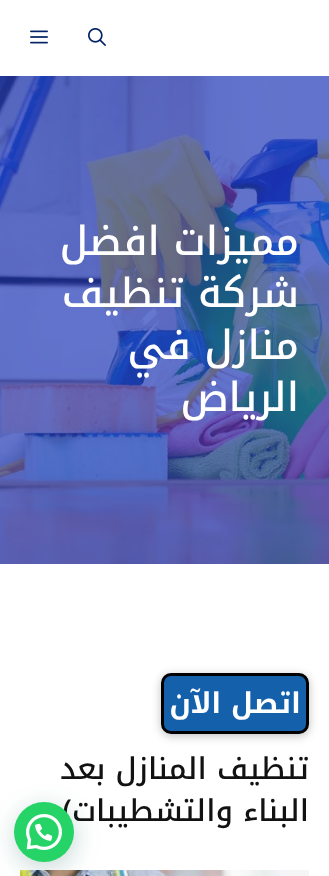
async function draw(canvas) {
  canvas.width = 329
  canvas.height = 876
  const ctx = canvas.getContext('2d')
  ctx.miterLimit = 4
  ctx.fontKerning = 'normal'
  async function loadImage(src) {
    const img = new Image()
    img.src = src
    await img.decode()
    return img
  }

  ctx.fillStyle = '#fff'
  ctx.fillRect(0, 0, 329, 876)
  ctx.drawImage(await loadImage('image0.png'), 88, 28, 18, 18)
  ctx.drawImage(await loadImage('image1.png'), 30, 30, 18, 14)
  ctx.fillStyle = '#253ebb'
  ctx.fillRect(0, 76, 329, 488)
  ctx.drawImage(await loadImage('image2.png'), 0, 76, 329, 488)
  ctx.direction = 'rtl'
  ctx.font = '500 40px Noto Kufi Arabic'
  ctx.fillStyle = '#fff'
  ctx.fillText('مميزات افضل', 299, 255)
  ctx.fillText('شركة تنظيف', 299, 307)
  ctx.fillText('منازل في', 299, 359)
  ctx.fillText('الرياض', 299, 411)
  ctx.fillStyle = '#00000040'
  ctx.filter = 'blur(5px)'
  ctx.beginPath()
  ctx.roundRect(161, 675, 148, 61, 10)
  ctx.fill()
  ctx.filter = 'none'
  ctx.fillStyle = '#1560aa'
  ctx.beginPath()
  ctx.roundRect(162.5, 674.5, 145, 58, 8.5)
  ctx.fill()
  ctx.strokeStyle = '#000'
  ctx.lineWidth = 3
  ctx.stroke()
  ctx.font = 'bold 28.5px Noto Kufi Arabic'
  ctx.fillStyle = '#fff'
  ctx.fillText('اتصل الآن', 301, 713)
  ctx.font = '500 30px Noto Kufi Arabic'
  ctx.fillStyle = '#121212'
  ctx.fillText('تنظيف المنازل بعد', 309, 779)
  ctx.fillText('البناء والتشطيبات)', 309, 821)
  ctx.drawImage(await loadImage('image3.png'), 20, 870, 289, 6)
  ctx.fillStyle = '#075e543d'
  ctx.filter = 'blur(12px)'
  ctx.beginPath()
  ctx.roundRect(15, 808, 60, 60, 30)
  ctx.fill()
  ctx.filter = 'none'
  ctx.fillStyle = '#25d366'
  ctx.beginPath()
  ctx.arc(44, 832, 30, 0, 2 * Math.PI)
  ctx.fill()
  ctx.drawImage(await loadImage('image4.png'), 26, 814, 36, 36)
}

draw(document.querySelector('canvas'))
